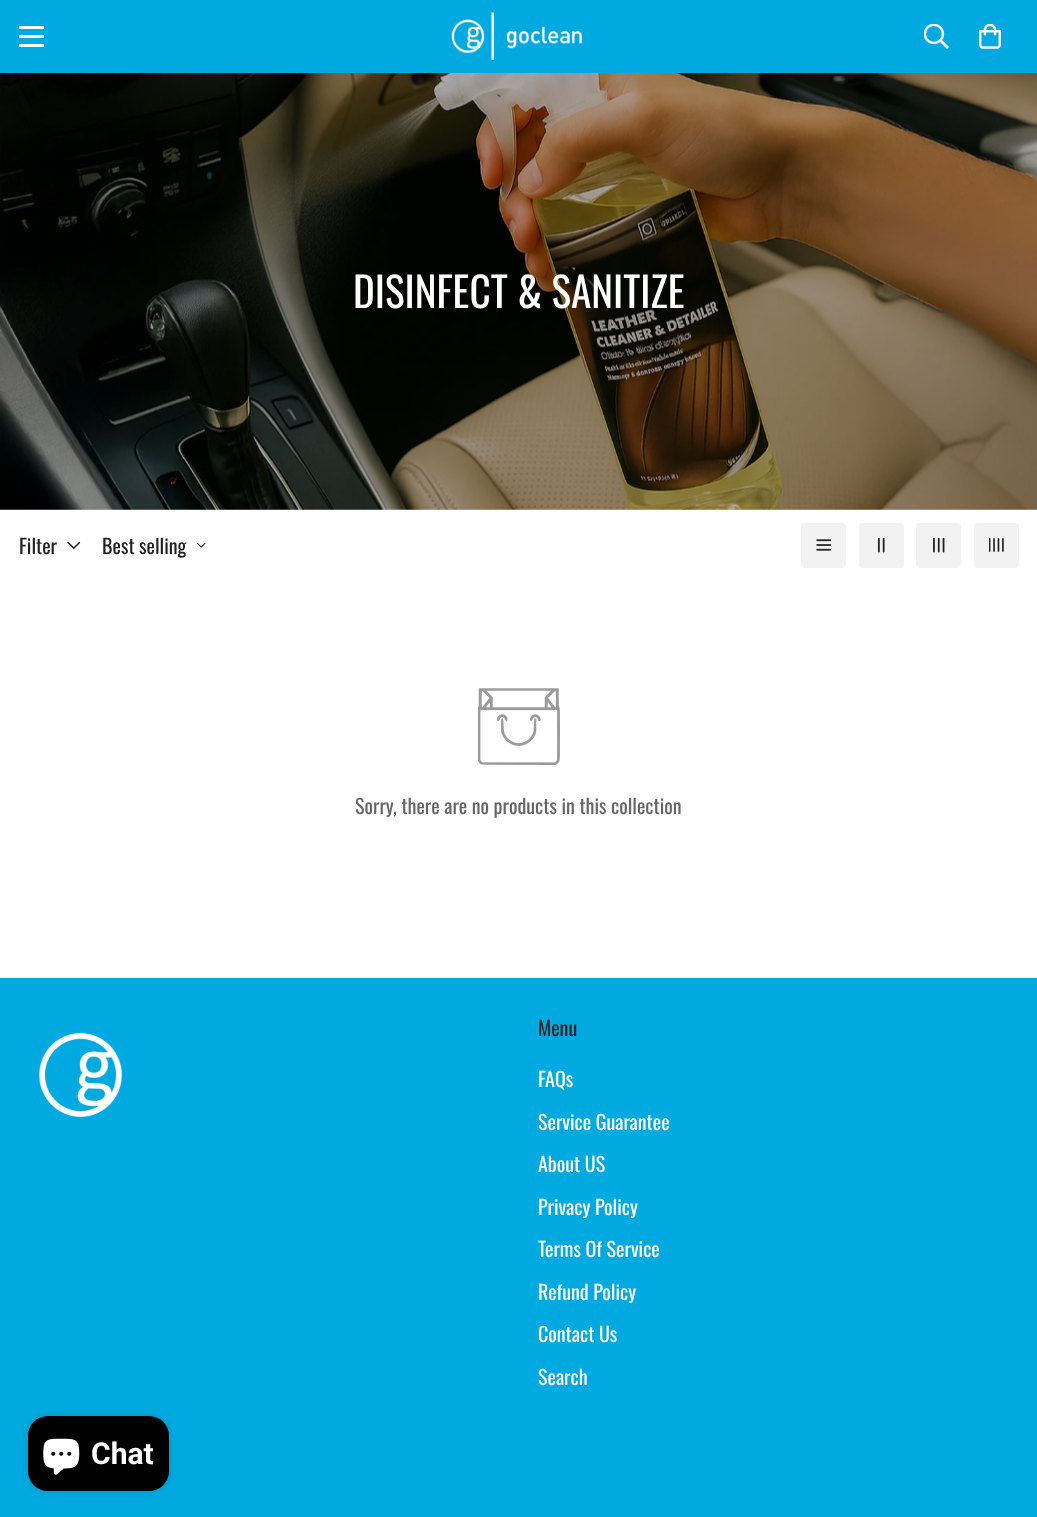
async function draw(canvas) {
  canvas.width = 1037
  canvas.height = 1517
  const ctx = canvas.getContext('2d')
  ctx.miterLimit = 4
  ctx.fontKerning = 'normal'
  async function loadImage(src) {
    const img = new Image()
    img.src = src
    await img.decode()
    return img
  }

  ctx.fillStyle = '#fff'
  ctx.fillRect(0, 0, 1037, 1517)
  ctx.fillStyle = '#00a9df'
  ctx.fillRect(0, 0, 1037, 73)
  ctx.fillStyle = '#fff'
  ctx.fillRect(19, 35, 25, 3)
  ctx.fillRect(19, 26, 25, 3)
  ctx.fillRect(19, 44, 25, 3)
  ctx.drawImage(await loadImage('image0.png'), 451, 12, 131, 48)
  ctx.drawImage(await loadImage('image1.png'), 924, 24, 25, 25)
  ctx.drawImage(await loadImage('image2.png'), 979, 24, 22, 25)
  ctx.drawImage(await loadImage('image3.png'), 0, 73, 1037, 437)
  ctx.font = '41.25px Oswald'
  ctx.fillText('DISINFECT & SANITIZE', 353, 308)
  ctx.font = '20px Oswald'
  ctx.fillStyle = '#222'
  ctx.fillText('Filter', 19, 554)
  ctx.drawImage(await loadImage('image4.png'), 67, 541, 14, 9)
  ctx.fillText('Best selling', 102, 554)
  ctx.drawImage(await loadImage('image5.png'), 197, 542, 9, 6)
  ctx.fillStyle = '#f2f2f2'
  ctx.beginPath()
  ctx.roundRect(801, 523, 45, 45, 4)
  ctx.fill()
  ctx.drawImage(await loadImage('image6.png'), 816, 539, 15, 12)
  ctx.beginPath()
  ctx.roundRect(859, 523, 45, 45, 4)
  ctx.fill()
  ctx.drawImage(await loadImage('image7.png'), 877, 538, 8, 15)
  ctx.beginPath()
  ctx.roundRect(916, 523, 45, 45, 4)
  ctx.fill()
  ctx.drawImage(await loadImage('image8.png'), 933, 538, 12, 15)
  ctx.beginPath()
  ctx.roundRect(974, 523, 45, 45, 4)
  ctx.fill()
  ctx.drawImage(await loadImage('image9.png'), 989, 538, 15, 14)
  ctx.drawImage(await loadImage('image10.png'), 478, 688, 82, 77)
  ctx.fillStyle = '#666'
  ctx.fillText('Sorry, there are no products in this collection', 355, 814)
  ctx.fillStyle = '#00a9df'
  ctx.fillRect(0, 978, 1037, 539)
  ctx.drawImage(await loadImage('image11.png'), 39, 1033, 84, 84)
  ctx.fillStyle = '#222'
  ctx.fillText('Menu', 538, 1036)
  ctx.fillStyle = '#fff'
  ctx.fillText('FAQs', 538, 1087)
  ctx.fillText('Service Guarantee', 538, 1130)
  ctx.fillText('About US', 538, 1172)
  ctx.fillText('Privacy Policy', 538, 1215)
  ctx.fillText('Terms Of Service', 538, 1257)
  ctx.fillText('Refund Policy', 538, 1300)
  ctx.fillText('Contact Us', 538, 1342)
  ctx.fillText('Search', 538, 1385)
  ctx.fillStyle = '#00000026'
  ctx.filter = 'blur(3px)'
  ctx.beginPath()
  ctx.roundRect(28, 1416, 141, 75, 20)
  ctx.fill()
  ctx.filter = 'none'
  ctx.fillStyle = '#000'
  ctx.beginPath()
  ctx.roundRect(28, 1416, 141, 75, 20)
  ctx.fill()
  ctx.drawImage(await loadImage('image12.png'), 43, 1438, 37, 37)
  ctx.font = 'bold 30px Roboto'
  ctx.fillStyle = '#fff'
  ctx.fillText('Chat', 91, 1464)
}

draw(document.querySelector('canvas'))
